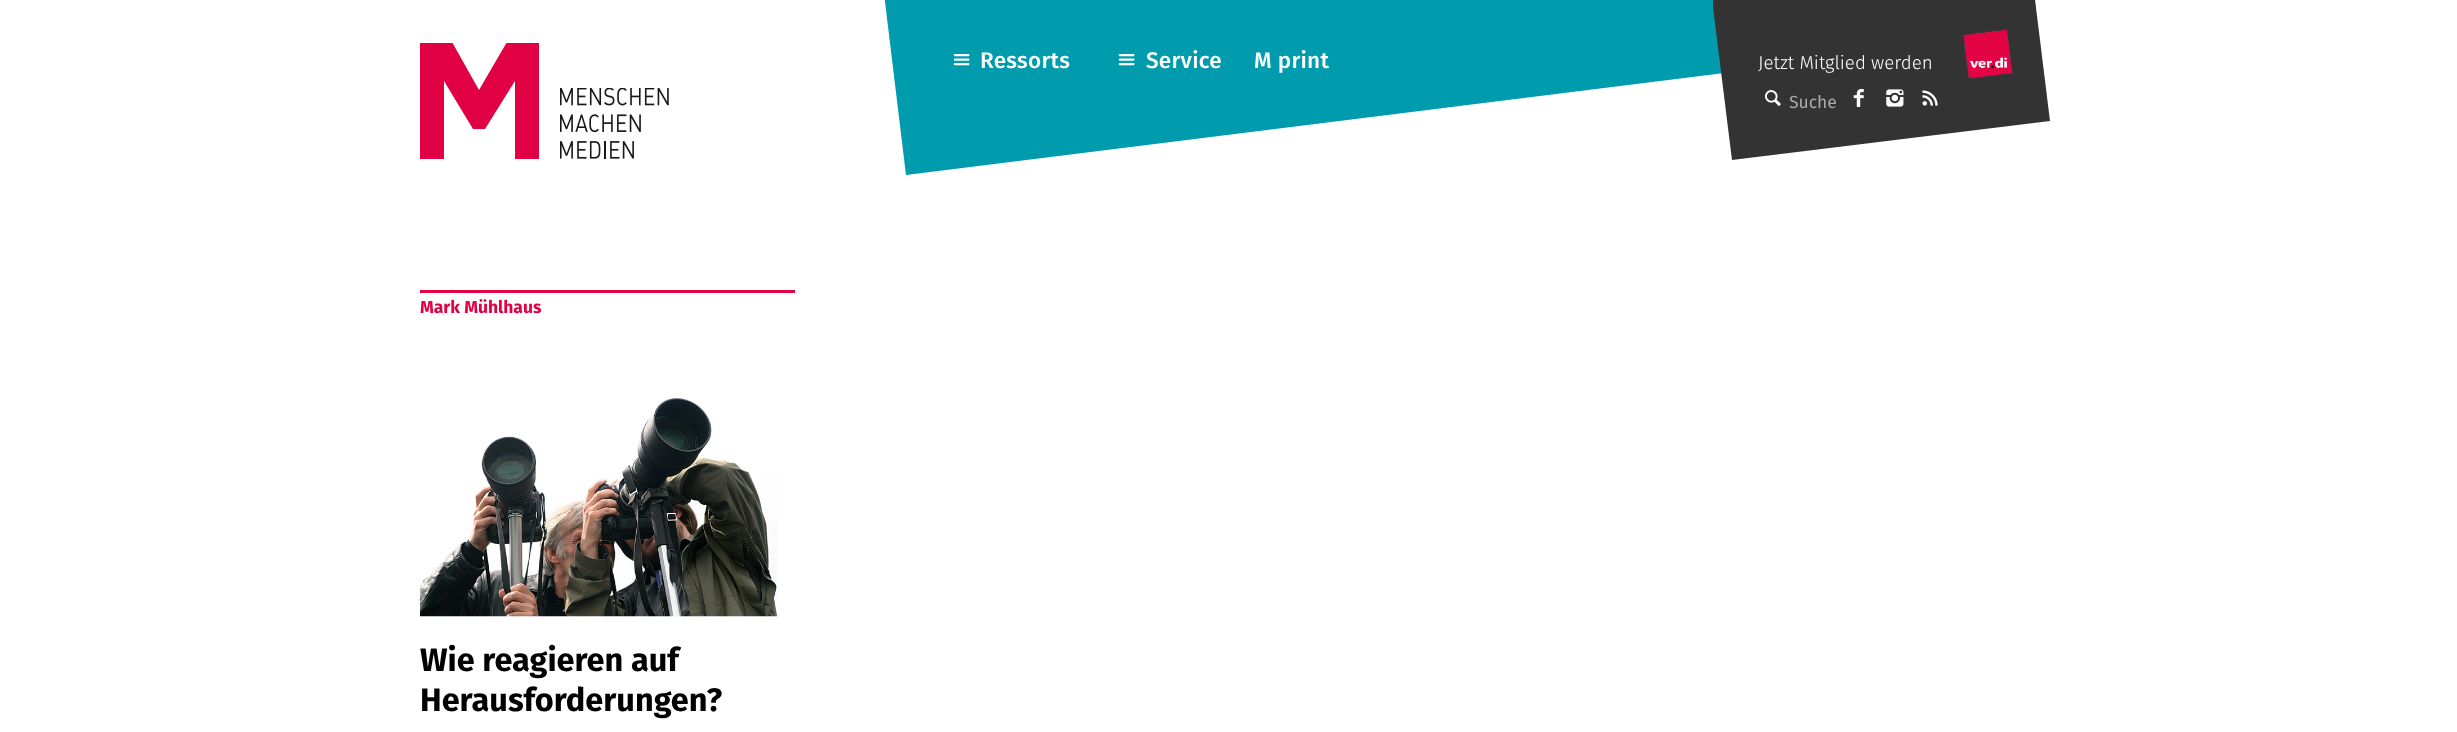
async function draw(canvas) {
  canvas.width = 2457
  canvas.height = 732
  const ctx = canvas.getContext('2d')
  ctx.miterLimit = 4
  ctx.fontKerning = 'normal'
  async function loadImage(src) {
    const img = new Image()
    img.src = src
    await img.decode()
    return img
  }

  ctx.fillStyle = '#fff'
  ctx.fillRect(0, 0, 2457, 732)
  ctx.save()
  ctx.beginPath()
  ctx.rect(420, 43, 119, 116)
  ctx.clip()
  ctx.fillStyle = '#e20045'
  ctx.beginPath()
  ctx.moveTo(485, 129)
  ctx.lineTo(515, 81)
  ctx.lineTo(515, 159)
  ctx.lineTo(539, 159)
  ctx.lineTo(539, 42)
  ctx.lineTo(507, 42)
  ctx.lineTo(479, 90)
  ctx.lineTo(452, 42)
  ctx.lineTo(420, 42)
  ctx.lineTo(420, 159)
  ctx.lineTo(444, 159)
  ctx.lineTo(444, 81)
  ctx.lineTo(473, 129)
  ctx.closePath()
  ctx.fill()
  ctx.restore()
  ctx.drawImage(await loadImage('image0.png'), 560, 88, 109, 71)
  ctx.fillStyle = '#009cad'
  ctx.beginPath()
  ctx.moveTo(882, -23)
  ctx.lineTo(1900, -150)
  ctx.lineTo(1925, 48)
  ctx.lineTo(906, 175)
  ctx.closePath()
  ctx.fill()
  ctx.drawImage(await loadImage('image1.png'), 953, 54, 17, 12)
  ctx.letterSpacing = '0.25px'
  ctx.font = '500 22.5px Fira Sans'
  ctx.fillStyle = '#fff'
  ctx.fillText('Ressorts', 980, 68)
  ctx.drawImage(await loadImage('image1.png'), 1118, 54, 17, 12)
  ctx.fillText('Service', 1146, 68)
  ctx.fillText('M print', 1254, 68)
  ctx.save()
  ctx.beginPath()
  ctx.rect(1713, 0, 337, 169)
  ctx.clip()
  ctx.fillStyle = '#333'
  ctx.beginPath()
  ctx.moveTo(1710, -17)
  ctx.lineTo(2028, -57)
  ctx.lineTo(2050, 121)
  ctx.lineTo(1732, 160)
  ctx.closePath()
  ctx.fill()
  ctx.restore()
  ctx.letterSpacing = '0px'
  ctx.font = '300 18.75px Fira Sans'
  ctx.fillText('Jetzt Mitglied werden', 1758, 69)
  ctx.drawImage(await loadImage('image2.png'), 1963, 29, 50, 50)
  ctx.drawImage(await loadImage('image3.png'), 1765, 90, 16, 16)
  ctx.font = '17.5px Fira Sans'
  ctx.fillStyle = '#aaa'
  ctx.fillText('Suche', 1789, 108)
  ctx.drawImage(await loadImage('image4.png'), 1853, 89, 11, 18)
  ctx.drawImage(await loadImage('image5.png'), 1886, 89, 18, 18)
  ctx.drawImage(await loadImage('image6.png'), 1922, 90, 16, 16)
  ctx.fillStyle = '#e30044'
  ctx.fillRect(420, 290, 375, 3)
  ctx.font = 'bold 17.5px Fira Sans'
  ctx.fillText('Mark Mühlhaus', 420, 313)
  ctx.drawImage(await loadImage('image7.png'), 420, 398, 358, 219)
  ctx.font = 'bold 32.5px Fira Sans'
  ctx.fillStyle = '#000'
  ctx.fillText('Wie reagieren auf', 420, 671)
  ctx.fillText('Herausforderungen?', 420, 711)
}

draw(document.querySelector('canvas'))
